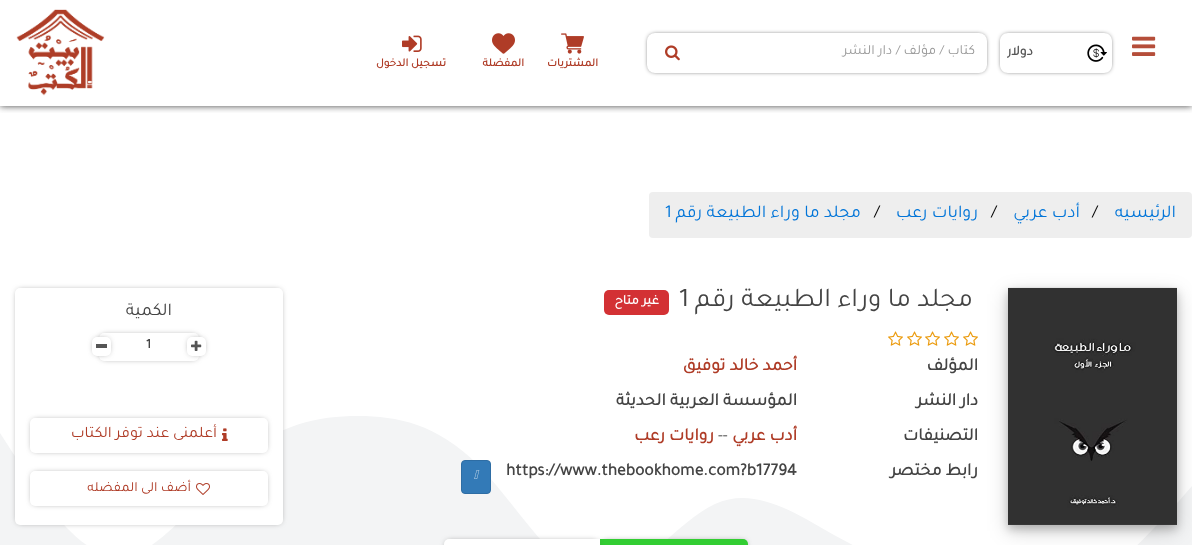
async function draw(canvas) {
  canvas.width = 1192
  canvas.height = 545
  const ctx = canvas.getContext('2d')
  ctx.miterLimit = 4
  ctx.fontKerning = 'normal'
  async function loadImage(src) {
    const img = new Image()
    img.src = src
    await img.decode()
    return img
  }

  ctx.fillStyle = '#fff'
  ctx.fillRect(0, 0, 1192, 545)
  ctx.save()
  ctx.beginPath()
  ctx.rect(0, 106, 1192, 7)
  ctx.clip()
  ctx.fillStyle = '#444'
  ctx.filter = 'blur(3.5px)'
  ctx.beginPath()
  ctx.rect(0, 0, 1192, 106)
  ctx.fill()
  ctx.filter = 'none'
  ctx.restore()
  ctx.drawImage(await loadImage('image0.png'), 1132, 36, 24, 20)
  ctx.drawImage(await loadImage('image1.png'), 1087, 44, 20, 18)
  ctx.save()
  ctx.beginPath()
  ctx.moveTo(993, 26)
  ctx.lineTo(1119, 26)
  ctx.lineTo(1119, 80)
  ctx.lineTo(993, 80)
  ctx.closePath()
  ctx.moveTo(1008, 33)
  ctx.lineTo(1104, 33)
  ctx.bezierCurveTo(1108.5, 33, 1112, 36.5, 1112, 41)
  ctx.lineTo(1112, 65)
  ctx.bezierCurveTo(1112, 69.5, 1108.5, 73, 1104, 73)
  ctx.lineTo(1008, 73)
  ctx.bezierCurveTo(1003.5, 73, 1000, 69.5, 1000, 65)
  ctx.lineTo(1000, 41)
  ctx.bezierCurveTo(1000, 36.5, 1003.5, 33, 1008, 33)
  ctx.closePath()
  ctx.clip('evenodd')
  ctx.fillStyle = '#000'
  ctx.filter = 'blur(2.5px)'
  ctx.beginPath()
  ctx.roundRect(1002, 35, 108, 36, 6)
  ctx.fill()
  ctx.filter = 'none'
  ctx.restore()
  ctx.save()
  ctx.beginPath()
  ctx.rect(1007, 43, 100, 20)
  ctx.clip()
  ctx.direction = 'rtl'
  ctx.font = 'bold 14px Tajawal'
  ctx.fillStyle = '#555'
  ctx.fillText('دولار', 1033, 55)
  ctx.restore()
  ctx.fillStyle = '#000'
  ctx.filter = 'blur(2.5px)'
  ctx.beginPath()
  ctx.roundRect(649, 35, 336, 36, 6)
  ctx.fill()
  ctx.filter = 'none'
  ctx.fillStyle = '#fff'
  ctx.beginPath()
  ctx.roundRect(647, 33, 340, 40, 8)
  ctx.fill()
  ctx.direction = 'rtl'
  ctx.font = '14px Tajawal'
  ctx.fillStyle = '#999'
  ctx.fillText('كتاب / مؤلف / دار النشر', 975, 54)
  ctx.drawImage(await loadImage('image2.png'), 665, 45, 15, 16)
  ctx.drawImage(await loadImage('image3.png'), 561, 33, 23, 21)
  ctx.font = 'bold 11.5px Tajawal'
  ctx.fillStyle = '#af3c27'
  ctx.fillText('المشتريات', 598, 66)
  ctx.drawImage(await loadImage('image4.png'), 492, 33, 23, 21)
  ctx.fillText('المفضلة', 524, 66)
  ctx.drawImage(await loadImage('image5.png'), 402, 35, 20, 17)
  ctx.fillText('تسجيل الدخول', 446, 66)
  ctx.drawImage(await loadImage('image6.png'), 16, 9, 89, 87)
  ctx.fillStyle = '#eee'
  ctx.beginPath()
  ctx.roundRect(649, 192, 543, 46, 4)
  ctx.fill()
  ctx.font = '18px Tajawal'
  ctx.fillStyle = '#0275d8'
  ctx.fillText('الرئيسيه', 1176, 217)
  ctx.direction = 'ltr'
  ctx.fillStyle = '#000'
  ctx.fillText('/', 1092, 217)
  ctx.direction = 'rtl'
  ctx.fillStyle = '#0275d8'
  ctx.fillText('أدب عربي', 1080, 217)
  ctx.direction = 'ltr'
  ctx.fillStyle = '#000'
  ctx.fillText('/', 991, 217)
  ctx.direction = 'rtl'
  ctx.fillStyle = '#0275d8'
  ctx.fillText('روايات رعب', 978, 217)
  ctx.direction = 'ltr'
  ctx.fillStyle = '#000'
  ctx.fillText('/', 874, 217)
  ctx.direction = 'rtl'
  ctx.fillStyle = '#0275d8'
  ctx.fillText('مجلد ما وراء الطبيعة رقم', 861, 217)
  ctx.direction = 'ltr'
  ctx.fillText('1', 665, 217)
  ctx.fillStyle = '#f3f4f5'
  ctx.beginPath()
  ctx.moveTo(0, 433)
  ctx.lineTo(20, 464)
  ctx.bezierCurveTo(40, 496, 79, 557, 119, 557)
  ctx.bezierCurveTo(159, 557, 199, 496, 238, 460)
  ctx.bezierCurveTo(278, 424, 318, 416, 358, 416)
  ctx.bezierCurveTo(397, 416, 437, 424, 477, 464)
  ctx.bezierCurveTo(517, 504, 556, 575, 596, 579)
  ctx.bezierCurveTo(636, 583, 675, 522, 715, 504)
  ctx.bezierCurveTo(755, 486, 795, 513, 834, 535)
  ctx.bezierCurveTo(874, 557, 914, 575, 954, 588)
  ctx.bezierCurveTo(993, 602, 1033, 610, 1073, 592)
  ctx.bezierCurveTo(1113, 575, 1152, 530, 1172, 509)
  ctx.lineTo(1192, 486)
  ctx.lineTo(1192, 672)
  ctx.lineTo(0, 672)
  ctx.closePath()
  ctx.fill()
  ctx.fillStyle = '#00000030'
  ctx.filter = 'blur(10px)'
  ctx.beginPath()
  ctx.rect(1008, 294, 169, 237)
  ctx.fill()
  ctx.filter = 'none'
  ctx.fillStyle = '#00000033'
  ctx.filter = 'blur(4px)'
  ctx.beginPath()
  ctx.rect(1008, 292, 169, 237)
  ctx.fill()
  ctx.filter = 'none'
  ctx.drawImage(await loadImage('image7.png'), 1008, 287, 169, 238)
  ctx.direction = 'rtl'
  ctx.font = '27px Tajawal'
  ctx.fillStyle = '#444'
  ctx.fillText('مجلد ما وراء الطبيعة رقم', 973, 306)
  ctx.direction = 'ltr'
  ctx.fillText('1', 679, 306)
  ctx.fillStyle = '#d33134'
  ctx.beginPath()
  ctx.roundRect(604, 290, 65, 25, 5)
  ctx.fill()
  ctx.direction = 'rtl'
  ctx.font = 'bold 13.5px Tajawal'
  ctx.fillStyle = '#fff'
  ctx.fillText('غير متاح', 659, 304)
  ctx.drawImage(await loadImage('image8.png'), 963, 331, 15, 15)
  ctx.drawImage(await loadImage('image8.png'), 944, 331, 15, 15)
  ctx.drawImage(await loadImage('image8.png'), 925, 331, 15, 15)
  ctx.drawImage(await loadImage('image8.png'), 907, 331, 15, 15)
  ctx.drawImage(await loadImage('image8.png'), 888, 331, 15, 15)
  ctx.font = 'bold 17.5px Tajawal'
  ctx.fillStyle = '#444'
  ctx.fillText('المؤلف', 978, 370)
  ctx.fillStyle = '#af3c27'
  ctx.fillText('أحمد خالد توفيق', 797, 370)
  ctx.fillStyle = '#444'
  ctx.fillText('دار النشر', 978, 405)
  ctx.fillText('المؤسسة العربية الحديثة', 797, 405)
  ctx.fillText('التصنيفات', 978, 440)
  ctx.fillStyle = '#af3c27'
  ctx.fillText('أدب عربي', 797, 440)
  ctx.direction = 'ltr'
  ctx.font = '17.5px Tajawal'
  ctx.fillStyle = '#444'
  ctx.fillText('--', 718, 440)
  ctx.direction = 'rtl'
  ctx.font = 'bold 17.5px Tajawal'
  ctx.fillStyle = '#af3c27'
  ctx.fillText('روايات رعب', 714, 440)
  ctx.fillStyle = '#444'
  ctx.fillText('رابط مختصر', 978, 475)
  ctx.direction = 'ltr'
  ctx.fillText('https://www.thebookhome.com?b17794', 506, 475)
  ctx.fillStyle = '#337ab7'
  ctx.beginPath()
  ctx.roundRect(461.5, 460.5, 29, 33, 3.5)
  ctx.fill()
  ctx.strokeStyle = '#2e6da4'
  ctx.stroke()
  ctx.drawImage(await loadImage('image9.png'), 474, 470, 6, 9)
  ctx.fillStyle = '#555'
  ctx.filter = 'blur(3px)'
  ctx.beginPath()
  ctx.roundRect(18, 291, 262, 231, 2)
  ctx.fill()
  ctx.filter = 'none'
  ctx.fillStyle = '#fff'
  ctx.beginPath()
  ctx.roundRect(15, 288, 268, 237, 5)
  ctx.fill()
  ctx.direction = 'rtl'
  ctx.font = '18px Tajawal'
  ctx.fillStyle = '#444'
  ctx.fillText('الكمية', 172, 315)
  ctx.fillStyle = '#555'
  ctx.filter = 'blur(3px)'
  ctx.beginPath()
  ctx.roundRect(102, 336, 94, 22, 2)
  ctx.fill()
  ctx.filter = 'none'
  ctx.fillStyle = '#fff'
  ctx.beginPath()
  ctx.roundRect(99, 333, 100, 28, 5)
  ctx.fill()
  ctx.filter = 'blur(3.5px)'
  ctx.beginPath()
  ctx.rect(190, 340, 13, 13)
  ctx.fill()
  ctx.filter = 'none'
  ctx.fillStyle = '#555'
  ctx.filter = 'blur(3px)'
  ctx.beginPath()
  ctx.roundRect(190, 340, 13, 13, 2)
  ctx.fill()
  ctx.filter = 'none'
  ctx.fillStyle = '#fff'
  ctx.beginPath()
  ctx.roundRect(187, 337, 19, 19, 5)
  ctx.fill()
  ctx.drawImage(await loadImage('image10.png'), 191, 340, 11, 11)
  ctx.direction = 'ltr'
  ctx.font = 'bold 13.5px Tajawal'
  ctx.fillStyle = '#444'
  ctx.fillText('1', 146, 348)
  ctx.fillStyle = '#fff'
  ctx.filter = 'blur(3.5px)'
  ctx.beginPath()
  ctx.rect(95, 340, 13, 13)
  ctx.fill()
  ctx.filter = 'none'
  ctx.fillStyle = '#555'
  ctx.filter = 'blur(3px)'
  ctx.beginPath()
  ctx.roundRect(95, 340, 13, 13, 2)
  ctx.fill()
  ctx.filter = 'none'
  ctx.fillStyle = '#fff'
  ctx.beginPath()
  ctx.roundRect(92, 337, 19, 19, 5)
  ctx.fill()
  ctx.fillStyle = '#555'
  ctx.fillRect(96, 344, 11, 4)
  ctx.filter = 'blur(3px)'
  ctx.beginPath()
  ctx.roundRect(33, 421, 232, 29, 2)
  ctx.fill()
  ctx.filter = 'none'
  ctx.fillStyle = '#fff'
  ctx.beginPath()
  ctx.roundRect(30, 418, 238, 35, 5)
  ctx.fill()
  ctx.drawImage(await loadImage('image11.png'), 222, 428, 6, 13)
  ctx.direction = 'rtl'
  ctx.font = '16px Tajawal'
  ctx.fillStyle = '#af3c27'
  ctx.fillText('أعلمنى عند توفر الكتاب', 217, 437)
  ctx.fillStyle = '#555'
  ctx.filter = 'blur(3px)'
  ctx.beginPath()
  ctx.roundRect(33, 474, 232, 29, 2)
  ctx.fill()
  ctx.filter = 'none'
  ctx.fillStyle = '#fff'
  ctx.beginPath()
  ctx.roundRect(30, 471, 238, 35, 5)
  ctx.fill()
  ctx.drawImage(await loadImage('image12.png'), 196, 483, 14, 12)
  ctx.font = '14px Tajawal'
  ctx.fillStyle = '#af3c27'
  ctx.fillText('أضف الى المفضله', 191, 491)
  ctx.fillStyle = '#555'
  ctx.filter = 'blur(3px)'
  ctx.beginPath()
  ctx.roundRect(603, 542, 142, 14, 2)
  ctx.fill()
  ctx.filter = 'none'
  ctx.fillStyle = '#32cd32'
  ctx.beginPath()
  ctx.roundRect(600, 539, 148, 6, [0, 5, 0, 0])
  ctx.fill()
  ctx.fillStyle = '#555'
  ctx.filter = 'blur(3px)'
  ctx.beginPath()
  ctx.roundRect(447, 542, 150, 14, 2)
  ctx.fill()
  ctx.filter = 'none'
  ctx.fillStyle = '#fff'
  ctx.beginPath()
  ctx.roundRect(444, 539, 156, 6, [5, 0, 0, 0])
  ctx.fill()
}

draw(document.querySelector('canvas'))
